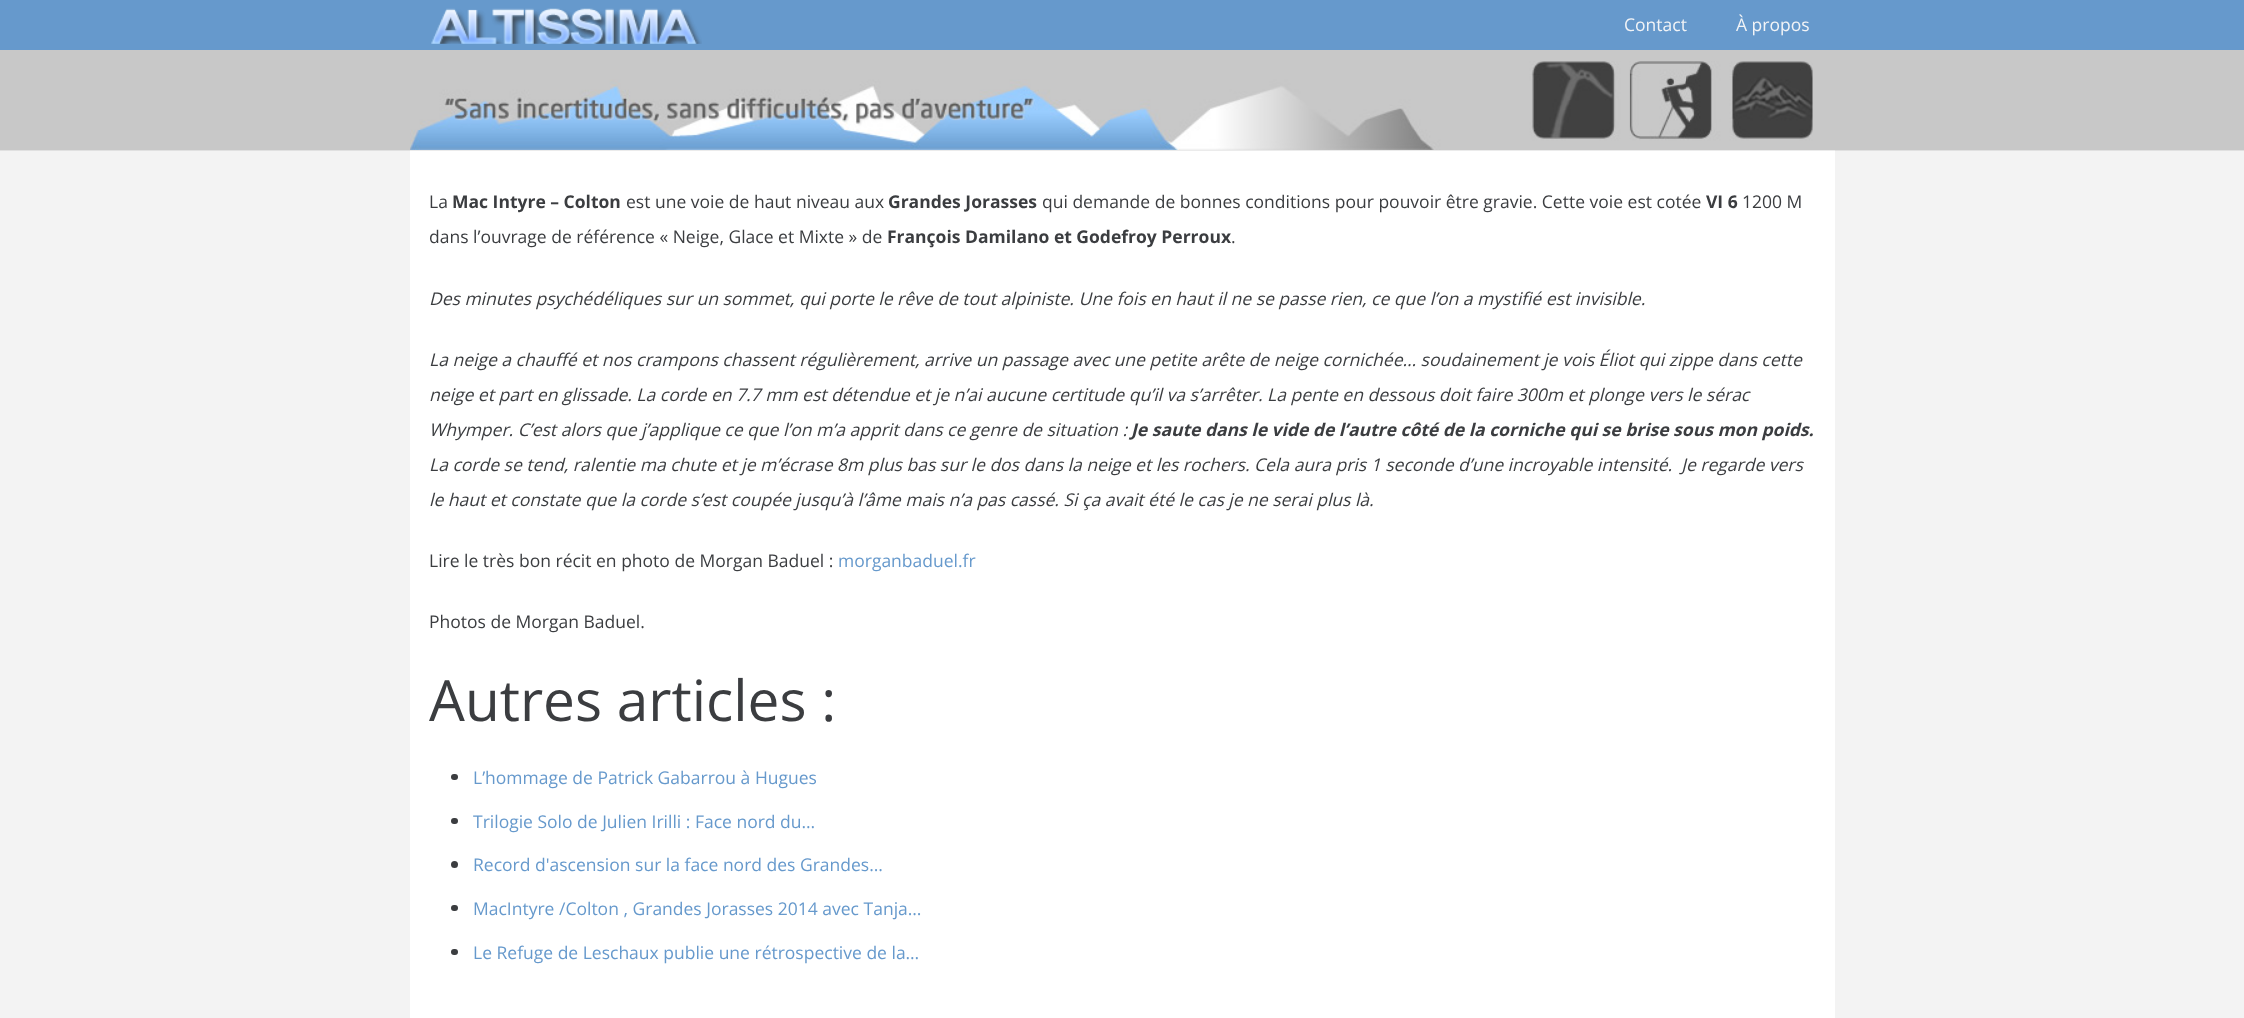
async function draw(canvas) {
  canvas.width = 2244
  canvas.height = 1018
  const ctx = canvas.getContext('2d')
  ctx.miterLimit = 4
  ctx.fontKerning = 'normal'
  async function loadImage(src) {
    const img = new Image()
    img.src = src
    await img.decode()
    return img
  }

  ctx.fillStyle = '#f3f3f3'
  ctx.fillRect(0, 0, 2244, 1018)
  ctx.fillStyle = '#69c'
  ctx.fillRect(0, 0, 2244, 50)
  ctx.drawImage(await loadImage('image0.png'), 431, 8, 271, 36)
  ctx.font = '17.5px Open Sans'
  ctx.fillStyle = '#f2f4f7'
  ctx.fillText('Contact', 1624, 31)
  ctx.fillText('À propos', 1736, 31)
  ctx.fillStyle = '#c8c8c8'
  ctx.fillRect(0, 50, 2244, 100)
  ctx.drawImage(await loadImage('image1.png'), 410, 61, 1403, 89)
  ctx.fillStyle = '#e0e0e0'
  ctx.fillRect(0, 150, 2244, 1)
  ctx.fillStyle = '#fff'
  ctx.fillRect(410, 151, 1425, 867)
  ctx.fillStyle = '#ebebeb'
  ctx.fillRect(410, 150, 1425, 1)
  ctx.fillStyle = '#3b3d40'
  ctx.fillText('La', 429, 208)
  ctx.font = 'bold 17.5px Open Sans'
  ctx.fillText('Mac Intyre – Colton', 452, 208)
  ctx.font = '17.5px Open Sans'
  ctx.fillText('est une voie de haut niveau aux', 626, 208)
  ctx.font = 'bold 17.5px Open Sans'
  ctx.fillText('Grandes Jorasses', 888, 208)
  ctx.font = '17.5px Open Sans'
  ctx.fillText('qui demande de bonnes conditions pour pouvoir être gravie. Cette voie est cotée', 1042, 208)
  ctx.font = 'bold 17.5px Open Sans'
  ctx.fillText('VI 6', 1706, 208)
  ctx.font = '17.5px Open Sans'
  ctx.fillText('1200 M', 1742, 208)
  ctx.fillText('dans l’ouvrage de référence « Neige, Glace et Mixte » de', 429, 243)
  ctx.font = 'bold 17.5px Open Sans'
  ctx.fillText('François Damilano et Godefroy Perroux', 887, 243)
  ctx.font = '17.5px Open Sans'
  ctx.fillText('.', 1231, 243)
  ctx.font = 'italic 17.5px Open Sans'
  ctx.fillText('Des minutes psychédéliques sur un sommet, qui porte le rêve de tout alpiniste. Une fois en haut il ne se passe rien, ce que l’on a mystifié est invisible.', 429, 305)
  ctx.fillText('La neige a chauffé et nos crampons chassent régulièrement, arrive un passage avec une petite arête de neige cornichée… soudainement je vois Éliot qui zippe dans cette', 429, 366)
  ctx.fillText('neige et part en glissade. La corde en 7.7 mm est détendue et je n’ai aucune certitude qu’il va s’arrêter. La pente en dessous doit faire 300m et plonge vers le sérac', 429, 401)
  ctx.fillText('Whymper. C’est alors que j’applique ce que l’on m’a apprit dans ce genre de situation :', 429, 436)
  ctx.font = 'italic bold 17.5px Open Sans'
  ctx.fillText('Je saute dans le vide de l’autre côté de la corniche qui se brise sous mon poids.', 1131, 436)
  ctx.font = 'italic 17.5px Open Sans'
  ctx.fillText('La corde se tend, ralentie ma chute et je m’écrase 8m plus bas sur le dos dans la neige et les rochers. Cela aura pris 1 seconde d’une incroyable intensité.  Je regarde vers', 429, 471)
  ctx.fillText('le haut et constate que la corde s’est coupée jusqu’à l’âme mais n’a pas cassé. Si ça avait été le cas je ne serai plus là.', 429, 506)
  ctx.font = '17.5px Open Sans'
  ctx.fillText('Lire le très bon récit en photo de Morgan Baduel :', 429, 567)
  ctx.fillStyle = '#69c'
  ctx.fillText('morganbaduel.fr', 838, 567)
  ctx.fillStyle = '#3b3d40'
  ctx.fillText('Photos de Morgan Baduel.', 429, 628)
  ctx.font = '56.75px Open Sans'
  ctx.fillText('Autres articles :', 429, 721)
  ctx.beginPath()
  ctx.roundRect(451, 774, 7, 6, 3)
  ctx.fill()
  ctx.font = '17.5px Open Sans'
  ctx.fillStyle = '#69c'
  ctx.fillText('L’hommage de Patrick Gabarrou à Hugues', 473, 784)
  ctx.fillStyle = '#3b3d40'
  ctx.beginPath()
  ctx.roundRect(451, 818, 7, 6, 3)
  ctx.fill()
  ctx.fillStyle = '#69c'
  ctx.fillText('Trilogie Solo de Julien Irilli : Face nord du…', 473, 828)
  ctx.fillStyle = '#3b3d40'
  ctx.beginPath()
  ctx.arc(454.5, 864.5, 3.5, 0, 2 * Math.PI)
  ctx.fill()
  ctx.fillStyle = '#69c'
  ctx.fillText('Record d\'ascension sur la face nord des Grandes…', 473, 871)
  ctx.fillStyle = '#3b3d40'
  ctx.beginPath()
  ctx.roundRect(451, 905, 7, 6, 3)
  ctx.fill()
  ctx.fillStyle = '#69c'
  ctx.fillText('MacIntyre /Colton , Grandes Jorasses 2014 avec Tanja…', 473, 915)
  ctx.fillStyle = '#3b3d40'
  ctx.beginPath()
  ctx.roundRect(451, 949, 7, 6, 3)
  ctx.fill()
  ctx.fillStyle = '#69c'
  ctx.fillText('Le Refuge de Leschaux publie une rétrospective de la…', 473, 959)
}

draw(document.querySelector('canvas'))
